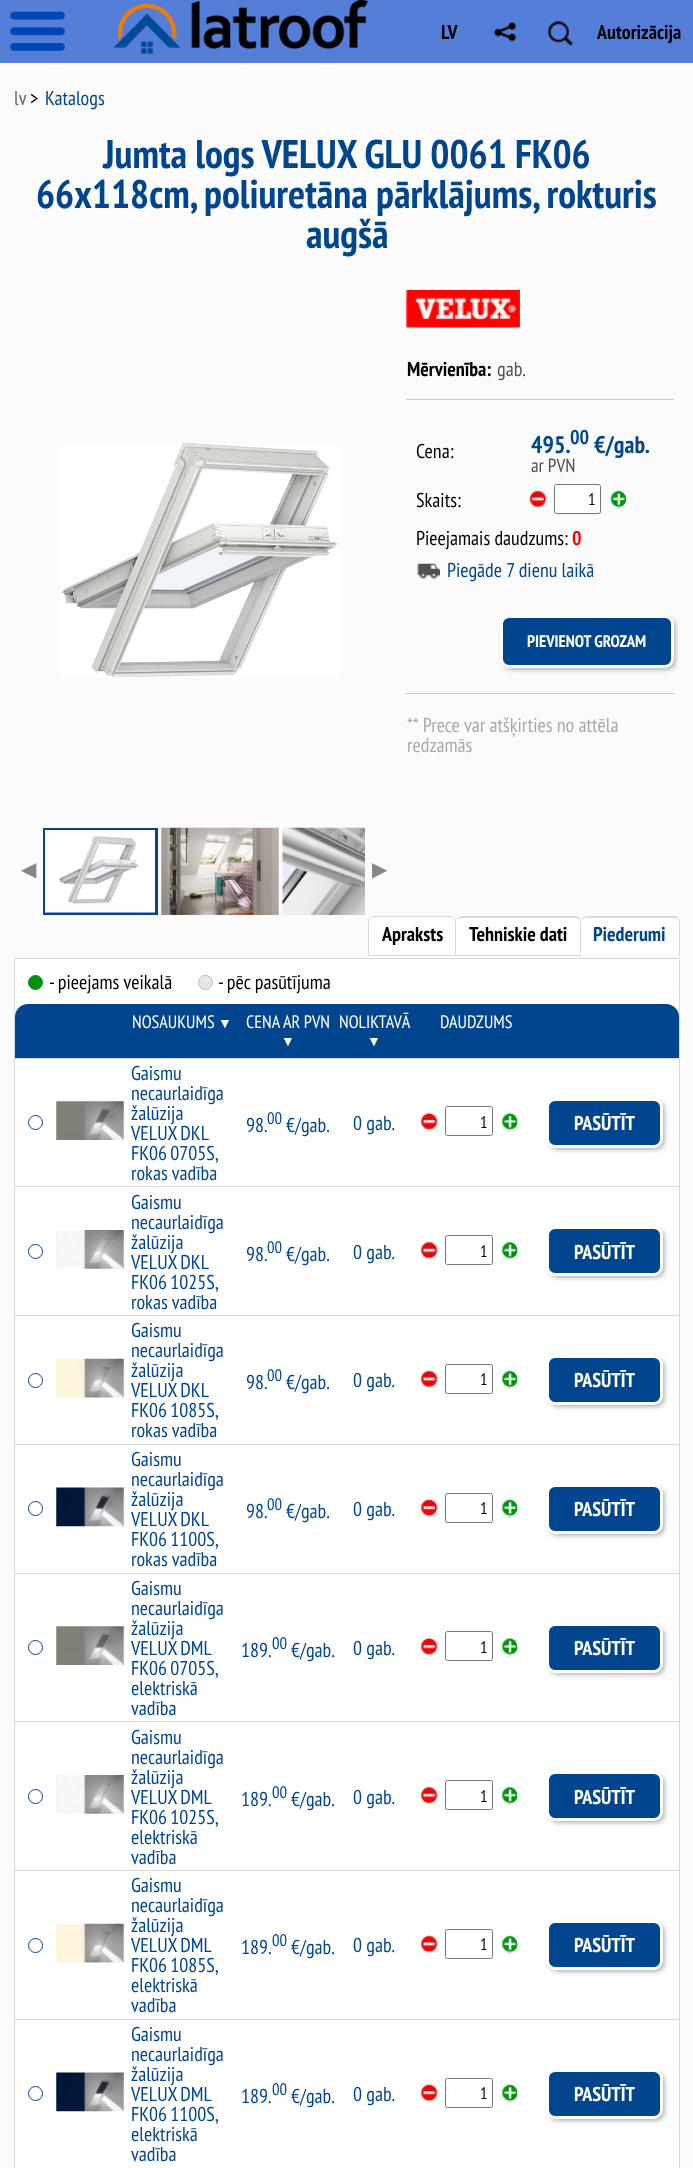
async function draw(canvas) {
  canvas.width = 693
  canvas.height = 2168
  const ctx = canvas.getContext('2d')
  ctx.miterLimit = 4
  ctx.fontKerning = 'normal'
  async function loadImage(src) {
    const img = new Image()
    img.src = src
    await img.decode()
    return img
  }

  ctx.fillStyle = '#547ed8'
  ctx.fillRect(0, 0, 693, 2168)
  ctx.drawImage(await loadImage('image0.png'), 10, 11, 55, 40)
  ctx.drawImage(await loadImage('image1.png'), 113, 0, 255, 54)
  ctx.font = 'bold 20px PT Sans Narrow'
  ctx.fillStyle = '#000'
  ctx.fillText('LV', 441, 39)
  ctx.drawImage(await loadImage('image2.png'), 493, 22, 24, 20)
  ctx.drawImage(await loadImage('image3.png'), 547, 21, 26, 26)
  ctx.fillText('Autorizācija', 597, 39)
  ctx.fillStyle = '#fbfbfb'
  ctx.fillRect(0, 63, 693, 2105)
  ctx.font = '20px PT Sans Narrow'
  ctx.fillStyle = '#666'
  ctx.fillText('lv', 14, 105)
  ctx.fillStyle = '#000'
  ctx.fillText('>', 30, 105)
  ctx.fillStyle = '#01458e'
  ctx.fillText('Katalogs', 45, 105)
  ctx.font = 'bold 40px PT Sans Narrow'
  ctx.fillText('Jumta logs VELUX GLU 0061 FK06', 103, 168)
  ctx.fillText('66x118cm, poliuretāna pārklājums, rokturis', 36, 208)
  ctx.fillText('augšā', 306, 248)
  ctx.drawImage(await loadImage('image4.png'), 406, 290, 114, 38)
  ctx.font = 'bold 20px PT Sans Narrow'
  ctx.fillStyle = '#000'
  ctx.fillText('Mērvienība:', 407, 376)
  ctx.font = '20px PT Sans Narrow'
  ctx.fillStyle = '#505050'
  ctx.fillText('gab.', 497, 376)
  ctx.fillStyle = '#ccc'
  ctx.fillRect(406, 399, 268, 1)
  ctx.fillStyle = '#000'
  ctx.fillText('Cena:', 416, 458)
  ctx.font = 'bold 24px PT Sans Narrow'
  ctx.fillStyle = '#01458e'
  ctx.fillText('495.', 531, 453)
  ctx.font = 'bold 20px PT Sans Narrow'
  ctx.fillText('00', 570, 444)
  ctx.font = 'bold 24px PT Sans Narrow'
  ctx.fillText('€/gab.', 594, 453)
  ctx.font = '19px PT Sans Narrow'
  ctx.fillStyle = '#505050'
  ctx.fillText('ar PVN', 531, 472)
  ctx.font = '20px PT Sans Narrow'
  ctx.fillStyle = '#000'
  ctx.fillText('Skaits:', 416, 507)
  ctx.drawImage(await loadImage('image5.png'), 529, 490, 18, 18)
  ctx.fillStyle = '#fff'
  ctx.beginPath()
  ctx.roundRect(554.5, 484.5, 46, 29, 2)
  ctx.fill()
  ctx.strokeStyle = '#767676'
  ctx.stroke()
  ctx.font = '16.75px PT Sans Narrow'
  ctx.fillStyle = '#000'
  ctx.fillText('1', 588, 505)
  ctx.drawImage(await loadImage('image6.png'), 610, 490, 17, 19)
  ctx.font = '20px PT Sans Narrow'
  ctx.fillText('Pieejamais daudzums:', 416, 545)
  ctx.font = 'bold 20px PT Sans Narrow'
  ctx.fillStyle = '#f00'
  ctx.fillText('0', 572, 545)
  ctx.drawImage(await loadImage('image7.png'), 417, 563, 23, 16)
  ctx.font = '20px PT Sans Narrow'
  ctx.fillStyle = '#01458e'
  ctx.fillText('Piegāde 7 dienu laikā', 447, 577)
  ctx.fillStyle = '#808080'
  ctx.filter = 'blur(3px)'
  ctx.beginPath()
  ctx.roundRect(505, 620, 169, 48, 6)
  ctx.fill()
  ctx.filter = 'none'
  ctx.fillStyle = '#01458e'
  ctx.beginPath()
  ctx.roundRect(501.5, 616.5, 171, 50, 7.5)
  ctx.fill()
  ctx.strokeStyle = '#fff'
  ctx.lineWidth = 3
  ctx.stroke()
  ctx.font = 'bold 16.75px PT Sans Narrow'
  ctx.fillStyle = '#fff'
  ctx.fillText('PIEVIENOT GROZAM', 527, 647)
  ctx.fillStyle = '#ccc'
  ctx.fillRect(406, 693, 268, 1)
  ctx.font = '20px PT Sans Narrow'
  ctx.fillStyle = '#a9a9a9'
  ctx.fillText('** Prece var atšķirties no attēla', 407, 732)
  ctx.fillText('redzamās', 407, 752)
  ctx.drawImage(await loadImage('image8.png'), 61, 443, 278, 235)
  ctx.font = '20px DejaVu Sans'
  ctx.fillStyle = '#868686'
  ctx.fillText('◀', 21, 876)
  ctx.strokeStyle = '#01458e'
  ctx.strokeRect(44.5, 829.5, 112, 84)
  ctx.drawImage(await loadImage('image9.png'), 161, 827, 118, 88)
  ctx.drawImage(await loadImage('image10.png'), 282, 827, 83, 88)
  ctx.drawImage(await loadImage('image11.png'), 45, 830, 110, 83)
  ctx.fillText('▶', 372, 876)
  ctx.fillStyle = '#fff'
  ctx.beginPath()
  ctx.roundRect(368.5, 916.5, 87, 39, [5.5, 5.5, 0, 0])
  ctx.fill()
  ctx.strokeStyle = '#d9d9d9'
  ctx.lineWidth = 1
  ctx.stroke()
  ctx.font = 'bold 20px PT Sans Narrow'
  ctx.fillStyle = '#000'
  ctx.fillText('Apraksts', 382, 941)
  ctx.fillStyle = '#fff'
  ctx.beginPath()
  ctx.roundRect(456, 916, 125, 40, [6, 6, 0, 0])
  ctx.fill()
  ctx.fillStyle = '#d9d9d9'
  ctx.beginPath()
  ctx.moveTo(462, 916)
  ctx.lineTo(575, 916)
  ctx.bezierCurveTo(578, 916, 581, 919, 581, 922)
  ctx.lineTo(581, 956)
  ctx.lineTo(456, 956)
  ctx.lineTo(456, 922)
  ctx.bezierCurveTo(456, 919, 459, 916, 462, 916)
  ctx.closePath()
  ctx.moveTo(462, 918)
  ctx.lineTo(575, 918)
  ctx.bezierCurveTo(578, 918, 580, 920, 580, 922)
  ctx.lineTo(580, 955)
  ctx.lineTo(456, 955)
  ctx.lineTo(456, 922)
  ctx.bezierCurveTo(456, 920, 459, 918, 462, 918)
  ctx.closePath()
  ctx.fill('evenodd')
  ctx.fillStyle = '#000'
  ctx.fillText('Tehniskie dati', 469, 941)
  ctx.fillStyle = '#fff'
  ctx.beginPath()
  ctx.roundRect(581, 916, 99, 40, [6, 6, 0, 0])
  ctx.fill()
  ctx.fillStyle = '#d9d9d9'
  ctx.beginPath()
  ctx.moveTo(588, 916)
  ctx.lineTo(674, 916)
  ctx.bezierCurveTo(677, 916, 680, 919, 680, 922)
  ctx.lineTo(680, 956)
  ctx.lineTo(581, 956)
  ctx.lineTo(581, 922)
  ctx.bezierCurveTo(581, 919, 584, 916, 588, 916)
  ctx.closePath()
  ctx.moveTo(588, 918)
  ctx.lineTo(674, 918)
  ctx.bezierCurveTo(677, 918, 679, 920, 679, 922)
  ctx.lineTo(679, 956)
  ctx.lineTo(581, 956)
  ctx.lineTo(581, 922)
  ctx.bezierCurveTo(581, 920, 584, 918, 588, 918)
  ctx.closePath()
  ctx.fill('evenodd')
  ctx.fillStyle = '#01458e'
  ctx.fillText('Piederumi', 593, 941)
  ctx.fillStyle = '#fff'
  ctx.beginPath()
  ctx.rect(14.5, 958.5, 665, 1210)
  ctx.fill()
  ctx.stroke()
  ctx.fillStyle = '#01930f'
  ctx.beginPath()
  ctx.arc(35.5, 982.5, 7, 0, 2 * Math.PI)
  ctx.fill()
  ctx.strokeStyle = '#01930f'
  ctx.stroke()
  ctx.font = '20px PT Sans Narrow'
  ctx.fillStyle = '#000'
  ctx.fillText('- pieejams veikalā', 49, 989)
  ctx.fillStyle = '#e6e6e6'
  ctx.beginPath()
  ctx.arc(205.5, 982.5, 7, 0, 2 * Math.PI)
  ctx.fill()
  ctx.strokeStyle = '#bcbcbc'
  ctx.stroke()
  ctx.fillStyle = '#000'
  ctx.fillText('- pēc pasūtījuma', 218, 989)
  ctx.fillStyle = '#01458e'
  ctx.beginPath()
  ctx.roundRect(15, 1004, 38, 54, [13, 0, 0, 0])
  ctx.fill()
  ctx.fillRect(53, 1004, 490, 54)
  ctx.beginPath()
  ctx.roundRect(543, 1004, 136, 54, [0, 13, 0, 0])
  ctx.fill()
  ctx.font = '18px PT Sans Narrow'
  ctx.fillStyle = '#fff'
  ctx.fillText('NOSAUKUMS', 132, 1028)
  ctx.font = '14px Liberation Serif'
  ctx.fillText('▼', 218, 1028)
  ctx.font = '18px PT Sans Narrow'
  ctx.fillText('CENA AR PVN', 246, 1028)
  ctx.font = '14px Liberation Serif'
  ctx.fillText('▼', 281, 1046)
  ctx.font = '18px PT Sans Narrow'
  ctx.fillText('NOLIKTAVĀ', 339, 1028)
  ctx.font = '14px Liberation Serif'
  ctx.fillText('▼', 367, 1046)
  ctx.font = '18px PT Sans Narrow'
  ctx.fillText('DAUDZUMS', 440, 1028)
  ctx.beginPath()
  ctx.arc(35.5, 1122.5, 7, 0, 2 * Math.PI)
  ctx.strokeStyle = '#01458e'
  ctx.stroke()
  ctx.drawImage(await loadImage('image12.png'), 56, 1101, 68, 39)
  ctx.font = '20px PT Sans Narrow'
  ctx.fillStyle = '#01458e'
  ctx.fillText('Gaismu', 131, 1080)
  ctx.fillText('necaurlaidīga', 131, 1100)
  ctx.fillText('žalūzija', 131, 1120)
  ctx.wordSpacing = '-1px'
  ctx.fillText('VELUX DKL', 131, 1140)
  ctx.fillText('FK06 0705S,', 131, 1160)
  ctx.wordSpacing = '0px'
  ctx.fillText('rokas vadība', 131, 1180)
  ctx.fillText('98.', 246, 1132)
  ctx.font = '16.75px PT Sans Narrow'
  ctx.fillText('00', 267, 1124)
  ctx.font = '20px PT Sans Narrow'
  ctx.fillText('€/gab.', 286, 1132)
  ctx.fillText('0 gab.', 353, 1130)
  ctx.drawImage(await loadImage('image13.png'), 420, 1112, 18, 19)
  ctx.beginPath()
  ctx.roundRect(445.5, 1106.5, 47, 29, 2)
  ctx.strokeStyle = '#767676'
  ctx.stroke()
  ctx.font = '16.75px PT Sans Narrow'
  ctx.fillStyle = '#000'
  ctx.fillText('1', 480, 1128)
  ctx.drawImage(await loadImage('image14.png'), 501, 1112, 17, 20)
  ctx.fillStyle = '#d9d9d9'
  ctx.fillRect(15, 1058, 664, 1)
  ctx.fillStyle = '#808080'
  ctx.filter = 'blur(3px)'
  ctx.beginPath()
  ctx.roundRect(551, 1103, 112, 45, 6)
  ctx.fill()
  ctx.filter = 'none'
  ctx.fillStyle = '#01458e'
  ctx.beginPath()
  ctx.roundRect(547.5, 1099.5, 114, 47, 7.5)
  ctx.fill()
  ctx.strokeStyle = '#fff'
  ctx.lineWidth = 3
  ctx.stroke()
  ctx.font = 'bold 20px PT Sans Narrow'
  ctx.fillStyle = '#fff'
  ctx.fillText('PASŪTĪT', 574, 1130)
  ctx.beginPath()
  ctx.arc(35.5, 1251.5, 7, 0, 2 * Math.PI)
  ctx.strokeStyle = '#01458e'
  ctx.lineWidth = 1
  ctx.stroke()
  ctx.drawImage(await loadImage('image15.png'), 56, 1230, 68, 39)
  ctx.font = '20px PT Sans Narrow'
  ctx.fillStyle = '#01458e'
  ctx.fillText('Gaismu', 131, 1209)
  ctx.fillText('necaurlaidīga', 131, 1229)
  ctx.fillText('žalūzija', 131, 1249)
  ctx.wordSpacing = '-1px'
  ctx.fillText('VELUX DKL', 131, 1269)
  ctx.fillText('FK06 1025S,', 131, 1289)
  ctx.wordSpacing = '0px'
  ctx.fillText('rokas vadība', 131, 1309)
  ctx.fillText('98.', 246, 1261)
  ctx.font = '16.75px PT Sans Narrow'
  ctx.fillText('00', 267, 1253)
  ctx.font = '20px PT Sans Narrow'
  ctx.fillText('€/gab.', 286, 1261)
  ctx.fillText('0 gab.', 353, 1259)
  ctx.drawImage(await loadImage('image16.png'), 420, 1241, 18, 18)
  ctx.beginPath()
  ctx.roundRect(445.5, 1235.5, 47, 29, 2)
  ctx.strokeStyle = '#767676'
  ctx.stroke()
  ctx.font = '16.75px PT Sans Narrow'
  ctx.fillStyle = '#000'
  ctx.fillText('1', 480, 1257)
  ctx.drawImage(await loadImage('image17.png'), 501, 1241, 17, 19)
  ctx.fillStyle = '#d9d9d9'
  ctx.fillRect(15, 1186, 664, 1)
  ctx.fillStyle = '#808080'
  ctx.filter = 'blur(3px)'
  ctx.beginPath()
  ctx.roundRect(551, 1231, 112, 45, 6)
  ctx.fill()
  ctx.filter = 'none'
  ctx.fillStyle = '#01458e'
  ctx.beginPath()
  ctx.roundRect(547.5, 1227.5, 114, 47, 7.5)
  ctx.fill()
  ctx.strokeStyle = '#fff'
  ctx.lineWidth = 3
  ctx.stroke()
  ctx.font = 'bold 20px PT Sans Narrow'
  ctx.fillStyle = '#fff'
  ctx.fillText('PASŪTĪT', 574, 1259)
  ctx.beginPath()
  ctx.arc(35.5, 1380.5, 7, 0, 2 * Math.PI)
  ctx.strokeStyle = '#01458e'
  ctx.lineWidth = 1
  ctx.stroke()
  ctx.drawImage(await loadImage('image18.png'), 56, 1358, 68, 40)
  ctx.font = '20px PT Sans Narrow'
  ctx.fillStyle = '#01458e'
  ctx.fillText('Gaismu', 131, 1337)
  ctx.fillText('necaurlaidīga', 131, 1357)
  ctx.fillText('žalūzija', 131, 1377)
  ctx.wordSpacing = '-1px'
  ctx.fillText('VELUX DKL', 131, 1397)
  ctx.fillText('FK06 1085S,', 131, 1417)
  ctx.wordSpacing = '0px'
  ctx.fillText('rokas vadība', 131, 1437)
  ctx.fillText('98.', 246, 1389)
  ctx.font = '16.75px PT Sans Narrow'
  ctx.fillText('00', 267, 1381)
  ctx.font = '20px PT Sans Narrow'
  ctx.fillText('€/gab.', 286, 1389)
  ctx.fillText('0 gab.', 353, 1387)
  ctx.drawImage(await loadImage('image19.png'), 420, 1370, 18, 18)
  ctx.beginPath()
  ctx.roundRect(445.5, 1364.5, 47, 29, 2)
  ctx.strokeStyle = '#767676'
  ctx.stroke()
  ctx.font = '16.75px PT Sans Narrow'
  ctx.fillStyle = '#000'
  ctx.fillText('1', 480, 1385)
  ctx.drawImage(await loadImage('image20.png'), 501, 1370, 17, 19)
  ctx.fillStyle = '#d9d9d9'
  ctx.fillRect(15, 1315, 664, 1)
  ctx.fillStyle = '#808080'
  ctx.filter = 'blur(3px)'
  ctx.beginPath()
  ctx.roundRect(551, 1360, 112, 45, 6)
  ctx.fill()
  ctx.filter = 'none'
  ctx.fillStyle = '#01458e'
  ctx.beginPath()
  ctx.roundRect(547.5, 1356.5, 114, 47, 7.5)
  ctx.fill()
  ctx.strokeStyle = '#fff'
  ctx.lineWidth = 3
  ctx.stroke()
  ctx.font = 'bold 20px PT Sans Narrow'
  ctx.fillStyle = '#fff'
  ctx.fillText('PASŪTĪT', 574, 1387)
  ctx.beginPath()
  ctx.arc(35.5, 1508.5, 7, 0, 2 * Math.PI)
  ctx.strokeStyle = '#01458e'
  ctx.lineWidth = 1
  ctx.stroke()
  ctx.drawImage(await loadImage('image21.png'), 56, 1487, 68, 40)
  ctx.font = '20px PT Sans Narrow'
  ctx.fillStyle = '#01458e'
  ctx.fillText('Gaismu', 131, 1466)
  ctx.fillText('necaurlaidīga', 131, 1486)
  ctx.fillText('žalūzija', 131, 1506)
  ctx.wordSpacing = '-1px'
  ctx.fillText('VELUX DKL', 131, 1526)
  ctx.fillText('FK06 1100S,', 131, 1546)
  ctx.wordSpacing = '0px'
  ctx.fillText('rokas vadība', 131, 1566)
  ctx.fillText('98.', 246, 1518)
  ctx.font = '16.75px PT Sans Narrow'
  ctx.fillText('00', 267, 1510)
  ctx.font = '20px PT Sans Narrow'
  ctx.fillText('€/gab.', 286, 1518)
  ctx.fillText('0 gab.', 353, 1516)
  ctx.drawImage(await loadImage('image22.png'), 420, 1498, 18, 19)
  ctx.beginPath()
  ctx.roundRect(445.5, 1493.5, 47, 29, 2)
  ctx.strokeStyle = '#767676'
  ctx.stroke()
  ctx.font = '16.75px PT Sans Narrow'
  ctx.fillStyle = '#000'
  ctx.fillText('1', 480, 1514)
  ctx.drawImage(await loadImage('image23.png'), 501, 1498, 17, 20)
  ctx.fillStyle = '#d9d9d9'
  ctx.fillRect(15, 1444, 664, 1)
  ctx.fillStyle = '#808080'
  ctx.filter = 'blur(3px)'
  ctx.beginPath()
  ctx.roundRect(551, 1489, 112, 45, 6)
  ctx.fill()
  ctx.filter = 'none'
  ctx.fillStyle = '#01458e'
  ctx.beginPath()
  ctx.roundRect(547.5, 1485.5, 114, 47, 7.5)
  ctx.fill()
  ctx.strokeStyle = '#fff'
  ctx.lineWidth = 3
  ctx.stroke()
  ctx.font = 'bold 20px PT Sans Narrow'
  ctx.fillStyle = '#fff'
  ctx.fillText('PASŪTĪT', 574, 1516)
  ctx.beginPath()
  ctx.arc(35.5, 1647.5, 7, 0, 2 * Math.PI)
  ctx.strokeStyle = '#01458e'
  ctx.lineWidth = 1
  ctx.stroke()
  ctx.drawImage(await loadImage('image12.png'), 56, 1626, 68, 39)
  ctx.font = '20px PT Sans Narrow'
  ctx.fillStyle = '#01458e'
  ctx.fillText('Gaismu', 131, 1595)
  ctx.fillText('necaurlaidīga', 131, 1615)
  ctx.fillText('žalūzija', 131, 1635)
  ctx.wordSpacing = '-1px'
  ctx.fillText('VELUX DML', 131, 1655)
  ctx.fillText('FK06 0705S,', 131, 1675)
  ctx.wordSpacing = '0px'
  ctx.fillText('elektriskā', 131, 1695)
  ctx.fillText('vadība', 131, 1715)
  ctx.fillText('189.', 241, 1657)
  ctx.font = '16.75px PT Sans Narrow'
  ctx.fillText('00', 272, 1649)
  ctx.font = '20px PT Sans Narrow'
  ctx.fillText('€/gab.', 291, 1657)
  ctx.fillText('0 gab.', 353, 1655)
  ctx.drawImage(await loadImage('image13.png'), 420, 1637, 18, 19)
  ctx.beginPath()
  ctx.roundRect(445.5, 1631.5, 47, 29, 2)
  ctx.strokeStyle = '#767676'
  ctx.stroke()
  ctx.font = '16.75px PT Sans Narrow'
  ctx.fillStyle = '#000'
  ctx.fillText('1', 480, 1653)
  ctx.drawImage(await loadImage('image14.png'), 501, 1637, 17, 20)
  ctx.fillStyle = '#d9d9d9'
  ctx.fillRect(15, 1573, 664, 1)
  ctx.fillStyle = '#808080'
  ctx.filter = 'blur(3px)'
  ctx.beginPath()
  ctx.roundRect(551, 1628, 112, 45, 6)
  ctx.fill()
  ctx.filter = 'none'
  ctx.fillStyle = '#01458e'
  ctx.beginPath()
  ctx.roundRect(547.5, 1624.5, 114, 47, 7.5)
  ctx.fill()
  ctx.strokeStyle = '#fff'
  ctx.lineWidth = 3
  ctx.stroke()
  ctx.font = 'bold 20px PT Sans Narrow'
  ctx.fillStyle = '#fff'
  ctx.fillText('PASŪTĪT', 574, 1655)
  ctx.beginPath()
  ctx.arc(35.5, 1796.5, 7, 0, 2 * Math.PI)
  ctx.strokeStyle = '#01458e'
  ctx.lineWidth = 1
  ctx.stroke()
  ctx.drawImage(await loadImage('image15.png'), 56, 1775, 68, 39)
  ctx.font = '20px PT Sans Narrow'
  ctx.fillStyle = '#01458e'
  ctx.fillText('Gaismu', 131, 1744)
  ctx.fillText('necaurlaidīga', 131, 1764)
  ctx.fillText('žalūzija', 131, 1784)
  ctx.wordSpacing = '-1px'
  ctx.fillText('VELUX DML', 131, 1804)
  ctx.fillText('FK06 1025S,', 131, 1824)
  ctx.wordSpacing = '0px'
  ctx.fillText('elektriskā', 131, 1844)
  ctx.fillText('vadība', 131, 1864)
  ctx.fillText('189.', 241, 1806)
  ctx.font = '16.75px PT Sans Narrow'
  ctx.fillText('00', 272, 1798)
  ctx.font = '20px PT Sans Narrow'
  ctx.fillText('€/gab.', 291, 1806)
  ctx.fillText('0 gab.', 353, 1804)
  ctx.drawImage(await loadImage('image16.png'), 420, 1786, 18, 18)
  ctx.beginPath()
  ctx.roundRect(445.5, 1780.5, 47, 29, 2)
  ctx.strokeStyle = '#767676'
  ctx.stroke()
  ctx.font = '16.75px PT Sans Narrow'
  ctx.fillStyle = '#000'
  ctx.fillText('1', 480, 1802)
  ctx.drawImage(await loadImage('image17.png'), 501, 1786, 17, 19)
  ctx.fillStyle = '#d9d9d9'
  ctx.fillRect(15, 1721, 664, 1)
  ctx.fillStyle = '#808080'
  ctx.filter = 'blur(3px)'
  ctx.beginPath()
  ctx.roundRect(551, 1776, 112, 45, 6)
  ctx.fill()
  ctx.filter = 'none'
  ctx.fillStyle = '#01458e'
  ctx.beginPath()
  ctx.roundRect(547.5, 1772.5, 114, 47, 7.5)
  ctx.fill()
  ctx.strokeStyle = '#fff'
  ctx.lineWidth = 3
  ctx.stroke()
  ctx.font = 'bold 20px PT Sans Narrow'
  ctx.fillStyle = '#fff'
  ctx.fillText('PASŪTĪT', 574, 1804)
  ctx.beginPath()
  ctx.arc(35.5, 1945.5, 7, 0, 2 * Math.PI)
  ctx.strokeStyle = '#01458e'
  ctx.lineWidth = 1
  ctx.stroke()
  ctx.drawImage(await loadImage('image18.png'), 56, 1923, 68, 40)
  ctx.font = '20px PT Sans Narrow'
  ctx.fillStyle = '#01458e'
  ctx.fillText('Gaismu', 131, 1892)
  ctx.fillText('necaurlaidīga', 131, 1912)
  ctx.fillText('žalūzija', 131, 1932)
  ctx.wordSpacing = '-1px'
  ctx.fillText('VELUX DML', 131, 1952)
  ctx.fillText('FK06 1085S,', 131, 1972)
  ctx.wordSpacing = '0px'
  ctx.fillText('elektriskā', 131, 1992)
  ctx.fillText('vadība', 131, 2012)
  ctx.fillText('189.', 241, 1954)
  ctx.font = '16.75px PT Sans Narrow'
  ctx.fillText('00', 272, 1946)
  ctx.font = '20px PT Sans Narrow'
  ctx.fillText('€/gab.', 291, 1954)
  ctx.fillText('0 gab.', 353, 1952)
  ctx.drawImage(await loadImage('image19.png'), 420, 1935, 18, 18)
  ctx.beginPath()
  ctx.roundRect(445.5, 1929.5, 47, 29, 2)
  ctx.strokeStyle = '#767676'
  ctx.stroke()
  ctx.font = '16.75px PT Sans Narrow'
  ctx.fillStyle = '#000'
  ctx.fillText('1', 480, 1950)
  ctx.drawImage(await loadImage('image20.png'), 501, 1935, 17, 19)
  ctx.fillStyle = '#d9d9d9'
  ctx.fillRect(15, 1870, 664, 1)
  ctx.fillStyle = '#808080'
  ctx.filter = 'blur(3px)'
  ctx.beginPath()
  ctx.roundRect(551, 1925, 112, 45, 6)
  ctx.fill()
  ctx.filter = 'none'
  ctx.fillStyle = '#01458e'
  ctx.beginPath()
  ctx.roundRect(547.5, 1921.5, 114, 47, 7.5)
  ctx.fill()
  ctx.strokeStyle = '#fff'
  ctx.lineWidth = 3
  ctx.stroke()
  ctx.font = 'bold 20px PT Sans Narrow'
  ctx.fillStyle = '#fff'
  ctx.fillText('PASŪTĪT', 574, 1952)
  ctx.beginPath()
  ctx.arc(35.5, 2093.5, 7, 0, 2 * Math.PI)
  ctx.strokeStyle = '#01458e'
  ctx.lineWidth = 1
  ctx.stroke()
  ctx.drawImage(await loadImage('image21.png'), 56, 2072, 68, 40)
  ctx.font = '20px PT Sans Narrow'
  ctx.fillStyle = '#01458e'
  ctx.fillText('Gaismu', 131, 2041)
  ctx.fillText('necaurlaidīga', 131, 2061)
  ctx.fillText('žalūzija', 131, 2081)
  ctx.wordSpacing = '-1px'
  ctx.fillText('VELUX DML', 131, 2101)
  ctx.fillText('FK06 1100S,', 131, 2121)
  ctx.wordSpacing = '0px'
  ctx.fillText('elektriskā', 131, 2141)
  ctx.fillText('vadība', 131, 2161)
  ctx.fillText('189.', 241, 2103)
  ctx.font = '16.75px PT Sans Narrow'
  ctx.fillText('00', 272, 2095)
  ctx.font = '20px PT Sans Narrow'
  ctx.fillText('€/gab.', 291, 2103)
  ctx.fillText('0 gab.', 353, 2101)
  ctx.drawImage(await loadImage('image22.png'), 420, 2083, 18, 19)
  ctx.beginPath()
  ctx.roundRect(445.5, 2078.5, 47, 29, 2)
  ctx.strokeStyle = '#767676'
  ctx.stroke()
  ctx.font = '16.75px PT Sans Narrow'
  ctx.fillStyle = '#000'
  ctx.fillText('1', 480, 2099)
  ctx.drawImage(await loadImage('image23.png'), 501, 2083, 17, 20)
  ctx.fillStyle = '#d9d9d9'
  ctx.fillRect(15, 2019, 664, 1)
  ctx.fillStyle = '#808080'
  ctx.filter = 'blur(3px)'
  ctx.beginPath()
  ctx.roundRect(551, 2074, 112, 45, 6)
  ctx.fill()
  ctx.filter = 'none'
  ctx.fillStyle = '#01458e'
  ctx.beginPath()
  ctx.roundRect(547.5, 2070.5, 114, 47, 7.5)
  ctx.fill()
  ctx.strokeStyle = '#fff'
  ctx.lineWidth = 3
  ctx.stroke()
  ctx.font = 'bold 20px PT Sans Narrow'
  ctx.fillStyle = '#fff'
  ctx.fillText('PASŪTĪT', 574, 2101)
}

draw(document.querySelector('canvas'))
